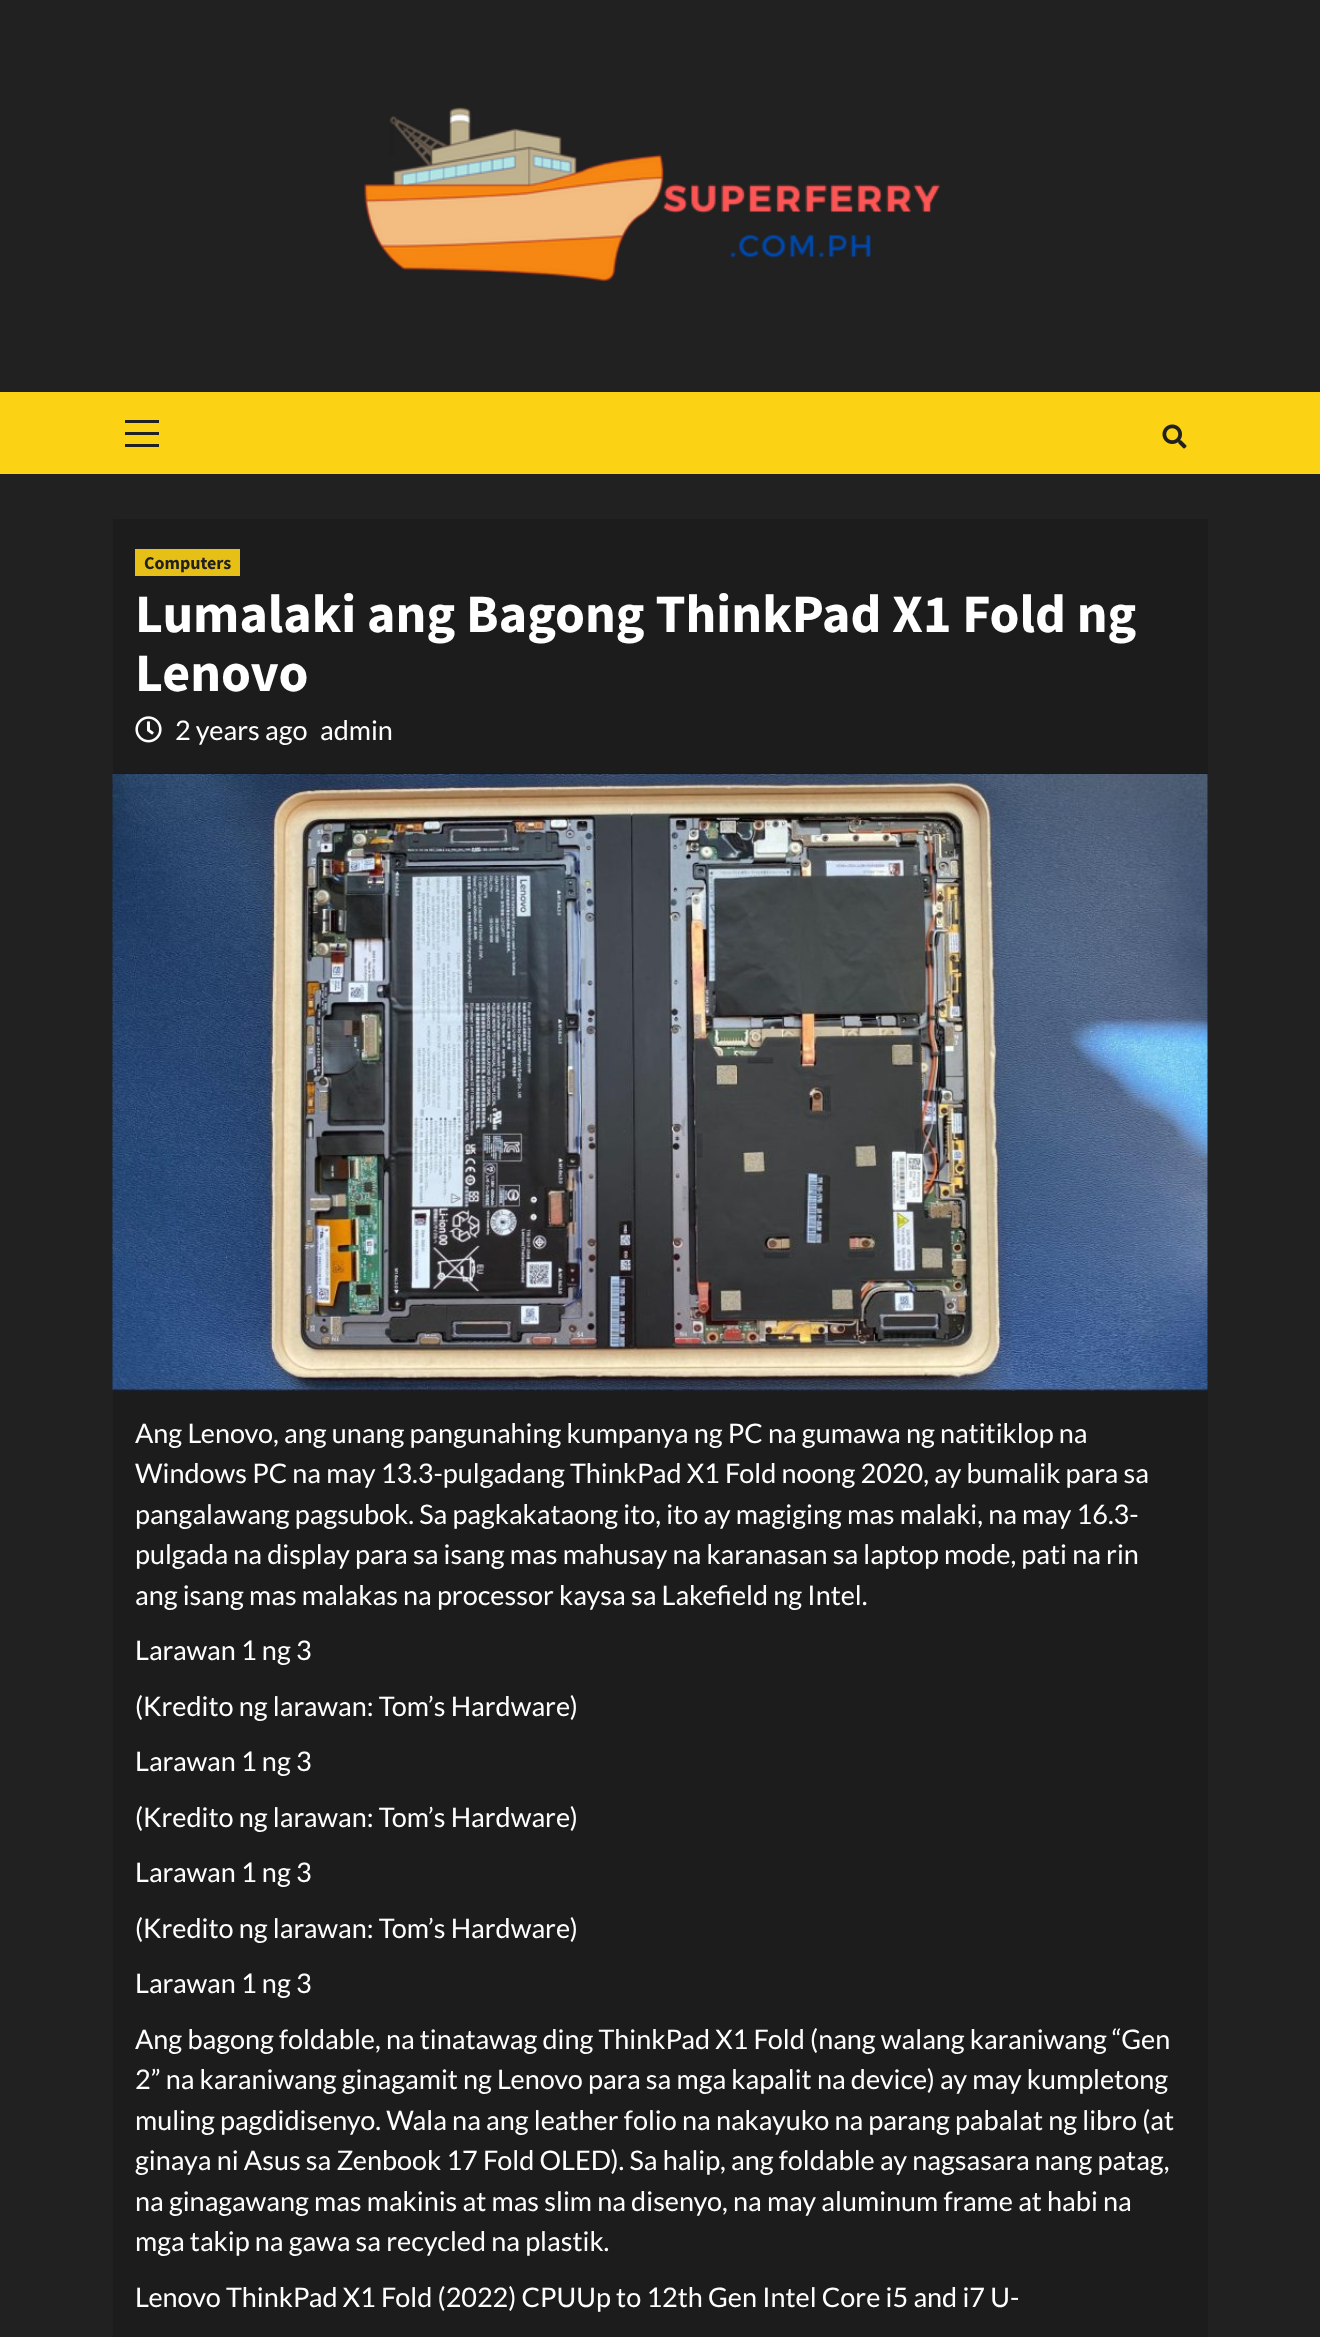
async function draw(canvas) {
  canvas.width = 1320
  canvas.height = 2337
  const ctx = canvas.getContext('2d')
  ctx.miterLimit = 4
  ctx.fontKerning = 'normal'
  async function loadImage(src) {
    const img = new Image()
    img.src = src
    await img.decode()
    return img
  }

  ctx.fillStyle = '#212121'
  ctx.fillRect(0, 0, 1320, 2337)
  ctx.drawImage(await loadImage('image0.png'), 364, 107, 577, 175)
  ctx.fillStyle = '#fcd215'
  ctx.fillRect(0, 392, 1320, 82)
  ctx.fillStyle = '#212121'
  ctx.fillRect(125, 432, 34, 3)
  ctx.fillRect(125, 420, 34, 3)
  ctx.fillRect(125, 444, 34, 3)
  ctx.drawImage(await loadImage('image1.png'), 1162, 424, 25, 25)
  ctx.fillStyle = '#1c1c1c'
  ctx.fillRect(113, 519, 1095, 1818)
  ctx.fillStyle = '#191919'
  ctx.fillRect(113, 773, 1095, 2)
  ctx.fillStyle = '#e6c016'
  ctx.fillRect(135, 549, 105, 27)
  ctx.font = 'bold 18px Source Sans Pro'
  ctx.fillStyle = '#212121'
  ctx.fillText('Computers', 144, 569)
  ctx.font = 'bold 54px Source Sans Pro'
  ctx.fillStyle = '#fff'
  ctx.fillText('Lumalaki ang Bagong ThinkPad X1 Fold ng', 135, 632)
  ctx.fillText('Lenovo', 135, 691)
  ctx.drawImage(await loadImage('image2.png'), 135, 716, 27, 27)
  ctx.font = '27px Lato'
  ctx.fillText('2 years ago', 175, 740)
  ctx.fillText('admin', 320, 740)
  ctx.drawImage(await loadImage('image3.png'), 112, 774, 1096, 617)
  ctx.fillText('Ang Lenovo, ang unang pangunahing kumpanya ng PC na gumawa ng natitiklop na', 135, 1443)
  ctx.fillText('Windows PC na may 13.3-pulgadang ThinkPad X1 Fold noong 2020, ay bumalik para sa', 135, 1483)
  ctx.fillText('pangalawang pagsubok. Sa pagkakataong ito, ito ay magiging mas malaki, na may 16.3-', 135, 1524)
  ctx.fillText('pulgada na display para sa isang mas mahusay na karanasan sa laptop mode, pati na rin', 135, 1564)
  ctx.fillText('ang isang mas malakas na processor kaysa sa Lakefield ng Intel.', 135, 1605)
  ctx.fillText('Larawan 1 ng 3', 135, 1660)
  ctx.fillText('(Kredito ng larawan: Tom’s Hardware)', 135, 1716)
  ctx.fillText('Larawan 1 ng 3', 135, 1771)
  ctx.fillText('(Kredito ng larawan: Tom’s Hardware)', 135, 1827)
  ctx.fillText('Larawan 1 ng 3', 135, 1882)
  ctx.fillText('(Kredito ng larawan: Tom’s Hardware)', 135, 1938)
  ctx.fillText('Larawan 1 ng 3', 135, 1993)
  ctx.fillText('Ang bagong foldable, na tinatawag ding ThinkPad X1 Fold (nang walang karaniwang “Gen', 135, 2049)
  ctx.fillText('2” na karaniwang ginagamit ng Lenovo para sa mga kapalit na device) ay may kumpletong', 135, 2089)
  ctx.fillText('muling pagdidisenyo. Wala na ang leather folio na nakayuko na parang pabalat ng libro (at', 135, 2130)
  ctx.fillText('ginaya ni Asus sa Zenbook 17 Fold OLED). Sa halip, ang foldable ay nagsasara nang patag,', 135, 2170)
  ctx.fillText('na ginagawang mas makinis at mas slim na disenyo, na may aluminum frame at habi na', 135, 2211)
  ctx.fillText('mga takip na gawa sa recycled na plastik.', 135, 2251)
  ctx.fillText('Lenovo ThinkPad X1 Fold (2022) CPUUp to 12th Gen Intel Core i5 and i7 U-', 135, 2307)
}

draw(document.querySelector('canvas'))
